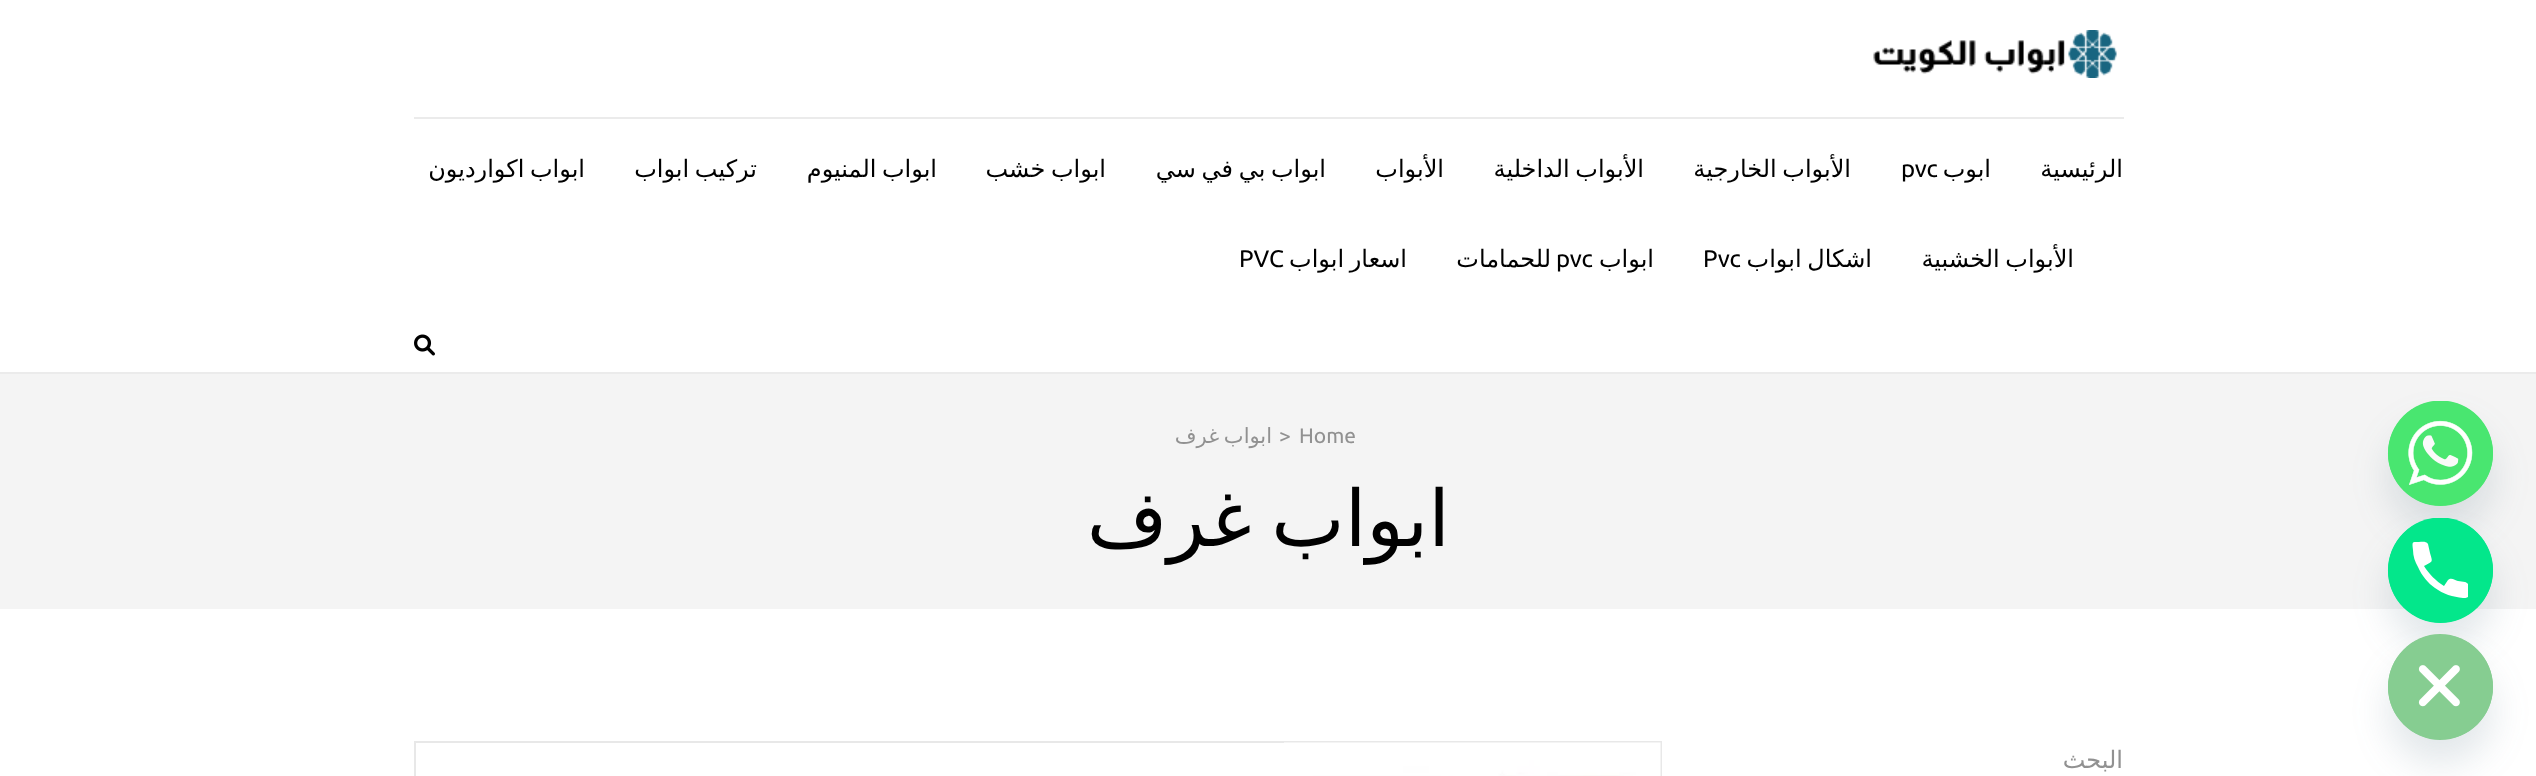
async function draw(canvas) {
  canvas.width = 2536
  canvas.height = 776
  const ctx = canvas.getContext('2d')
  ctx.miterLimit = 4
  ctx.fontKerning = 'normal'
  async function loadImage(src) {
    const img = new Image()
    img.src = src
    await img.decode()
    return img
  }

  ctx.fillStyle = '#fff'
  ctx.fillRect(0, 0, 2536, 776)
  ctx.fillStyle = '#f4f4f4'
  ctx.fillRect(0, 374, 2536, 235)
  ctx.fillStyle = '#ebebeb'
  ctx.fillRect(0, 372, 2536, 2)
  ctx.fillStyle = '#49687e29'
  ctx.filter = 'blur(18px)'
  ctx.beginPath()
  ctx.roundRect(2388, 425, 105, 105, 52.5)
  ctx.fill()
  ctx.filter = 'none'
  ctx.fillStyle = '#49e670'
  ctx.beginPath()
  ctx.arc(2440.5, 453.5, 52.5, 0, 2 * Math.PI)
  ctx.fill()
  ctx.drawImage(await loadImage('image0.png'), 2388, 401, 105, 105)
  ctx.fillStyle = '#49687e29'
  ctx.filter = 'blur(18px)'
  ctx.beginPath()
  ctx.roundRect(2388, 542, 105, 105, 52.5)
  ctx.fill()
  ctx.filter = 'none'
  ctx.fillStyle = '#03e78b'
  ctx.beginPath()
  ctx.arc(2440.5, 570.5, 52.5, 0, 2 * Math.PI)
  ctx.fill()
  ctx.save()
  ctx.beginPath()
  ctx.rect(2388, 518, 105, 105)
  ctx.clip()
  ctx.beginPath()
  ctx.arc(2440.5, 570, 52.5, 0, 2 * Math.PI)
  ctx.fill()
  ctx.restore()
  ctx.fillStyle = '#fff'
  ctx.beginPath()
  ctx.moveTo(2465, 582)
  ctx.lineTo(2458, 581)
  ctx.bezierCurveTo(2455, 580, 2451, 577, 2448, 580)
  ctx.lineTo(2444, 586)
  ctx.bezierCurveTo(2436, 581, 2429, 574, 2424, 566)
  ctx.bezierCurveTo(2433, 561, 2433, 563, 2430, 553)
  ctx.lineTo(2428, 544)
  ctx.bezierCurveTo(2426, 541, 2422, 542, 2419, 542)
  ctx.bezierCurveTo(2412, 542, 2412, 541, 2413, 550)
  ctx.bezierCurveTo(2413, 556, 2415, 562, 2418, 567)
  ctx.bezierCurveTo(2422, 576, 2428, 583, 2435, 588)
  ctx.bezierCurveTo(2443, 594, 2453, 597, 2463, 598)
  ctx.bezierCurveTo(2464, 598, 2467, 598, 2468, 597)
  ctx.lineTo(2468, 584)
  ctx.bezierCurveTo(2467, 583, 2466, 582, 2465, 582)
  ctx.closePath()
  ctx.fill()
  ctx.fillStyle = '#49687e29'
  ctx.filter = 'blur(18px)'
  ctx.beginPath()
  ctx.roundRect(2388, 659, 105, 105, 52.5)
  ctx.fill()
  ctx.filter = 'none'
  ctx.fillStyle = '#86cd91'
  ctx.beginPath()
  ctx.moveTo(2440, 740)
  ctx.bezierCurveTo(2412, 740, 2388, 716, 2388, 687)
  ctx.bezierCurveTo(2388, 658, 2412, 634, 2440, 634)
  ctx.bezierCurveTo(2469, 634, 2493, 658, 2493, 687)
  ctx.bezierCurveTo(2493, 716, 2469, 740, 2440, 740)
  ctx.closePath()
  ctx.fill()
  ctx.drawImage(await loadImage('image1.png'), 2388, 636, 105, 102)
  ctx.drawImage(await loadImage('image2.png'), 1873, 30, 244, 48)
  ctx.fillStyle = '#ebebeb'
  ctx.fillRect(414, 117, 1710, 2)
  ctx.direction = 'rtl'
  ctx.font = '24px DejaVu Sans'
  ctx.fillStyle = '#000'
  ctx.fillText('الرئيسية', 2123, 177)
  ctx.fillText('ابوب', 1991, 177)
  ctx.direction = 'ltr'
  ctx.font = '24px Ubuntu'
  ctx.fillText('pvc', 1901, 177)
  ctx.wordSpacing = '-2px'
  ctx.direction = 'rtl'
  ctx.font = '24px DejaVu Sans'
  ctx.fillText('الأبواب الخارجية', 1851, 177)
  ctx.fillText('الأبواب الداخلية', 1644, 177)
  ctx.wordSpacing = '0px'
  ctx.fillText('الأبواب', 1444, 177)
  ctx.wordSpacing = '-2px'
  ctx.fillText('ابواب بي في سي', 1326, 177)
  ctx.fillText('ابواب خشب', 1106, 177)
  ctx.fillText('ابواب المنيوم', 937, 177)
  ctx.fillText('تركيب ابواب', 757, 177)
  ctx.fillText('ابواب اكوارديون', 585, 177)
  ctx.fillText('الأبواب الخشبية', 2074, 267)
  ctx.fillText('اشكال ابواب', 1872, 267)
  ctx.wordSpacing = '0px'
  ctx.direction = 'ltr'
  ctx.font = '24px Ubuntu'
  ctx.fillText('Pvc', 1703, 267)
  ctx.direction = 'rtl'
  ctx.font = '24px DejaVu Sans'
  ctx.fillText('ابواب', 1654, 267)
  ctx.direction = 'ltr'
  ctx.font = '24px Ubuntu'
  ctx.fillText('pvc', 1556, 267)
  ctx.direction = 'rtl'
  ctx.font = '24px DejaVu Sans'
  ctx.fillText('للحمامات', 1551, 267)
  ctx.wordSpacing = '-2px'
  ctx.fillText('اسعار ابواب', 1407, 267)
  ctx.wordSpacing = '0px'
  ctx.direction = 'ltr'
  ctx.font = '24px Ubuntu'
  ctx.fillText('PVC', 1239, 267)
  ctx.drawImage(await loadImage('image3.png'), 414, 334, 21, 22)
  ctx.font = '21px Ubuntu'
  ctx.fillStyle = '#919191'
  ctx.fillText('Home', 1299, 443)
  ctx.fillText('>', 1279, 443)
  ctx.wordSpacing = '-2px'
  ctx.direction = 'rtl'
  ctx.font = '21px DejaVu Sans'
  ctx.fillText('ابواب غرف', 1272, 443)
  ctx.wordSpacing = '-5px'
  ctx.font = '78px DejaVu Sans'
  ctx.fillStyle = '#000'
  ctx.fillText('ابواب غرف', 1450, 546)
  ctx.wordSpacing = '0px'
  ctx.font = '24px DejaVu Sans'
  ctx.fillStyle = '#919191'
  ctx.fillText('البحث', 2123, 768)
  ctx.strokeStyle = '#e8e8e8'
  ctx.lineWidth = 2
  ctx.strokeRect(415, 742, 1246, 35)
  ctx.drawImage(await loadImage('image4.png'), 1284, 742, 377, 34)
}

draw(document.querySelector('canvas'))
